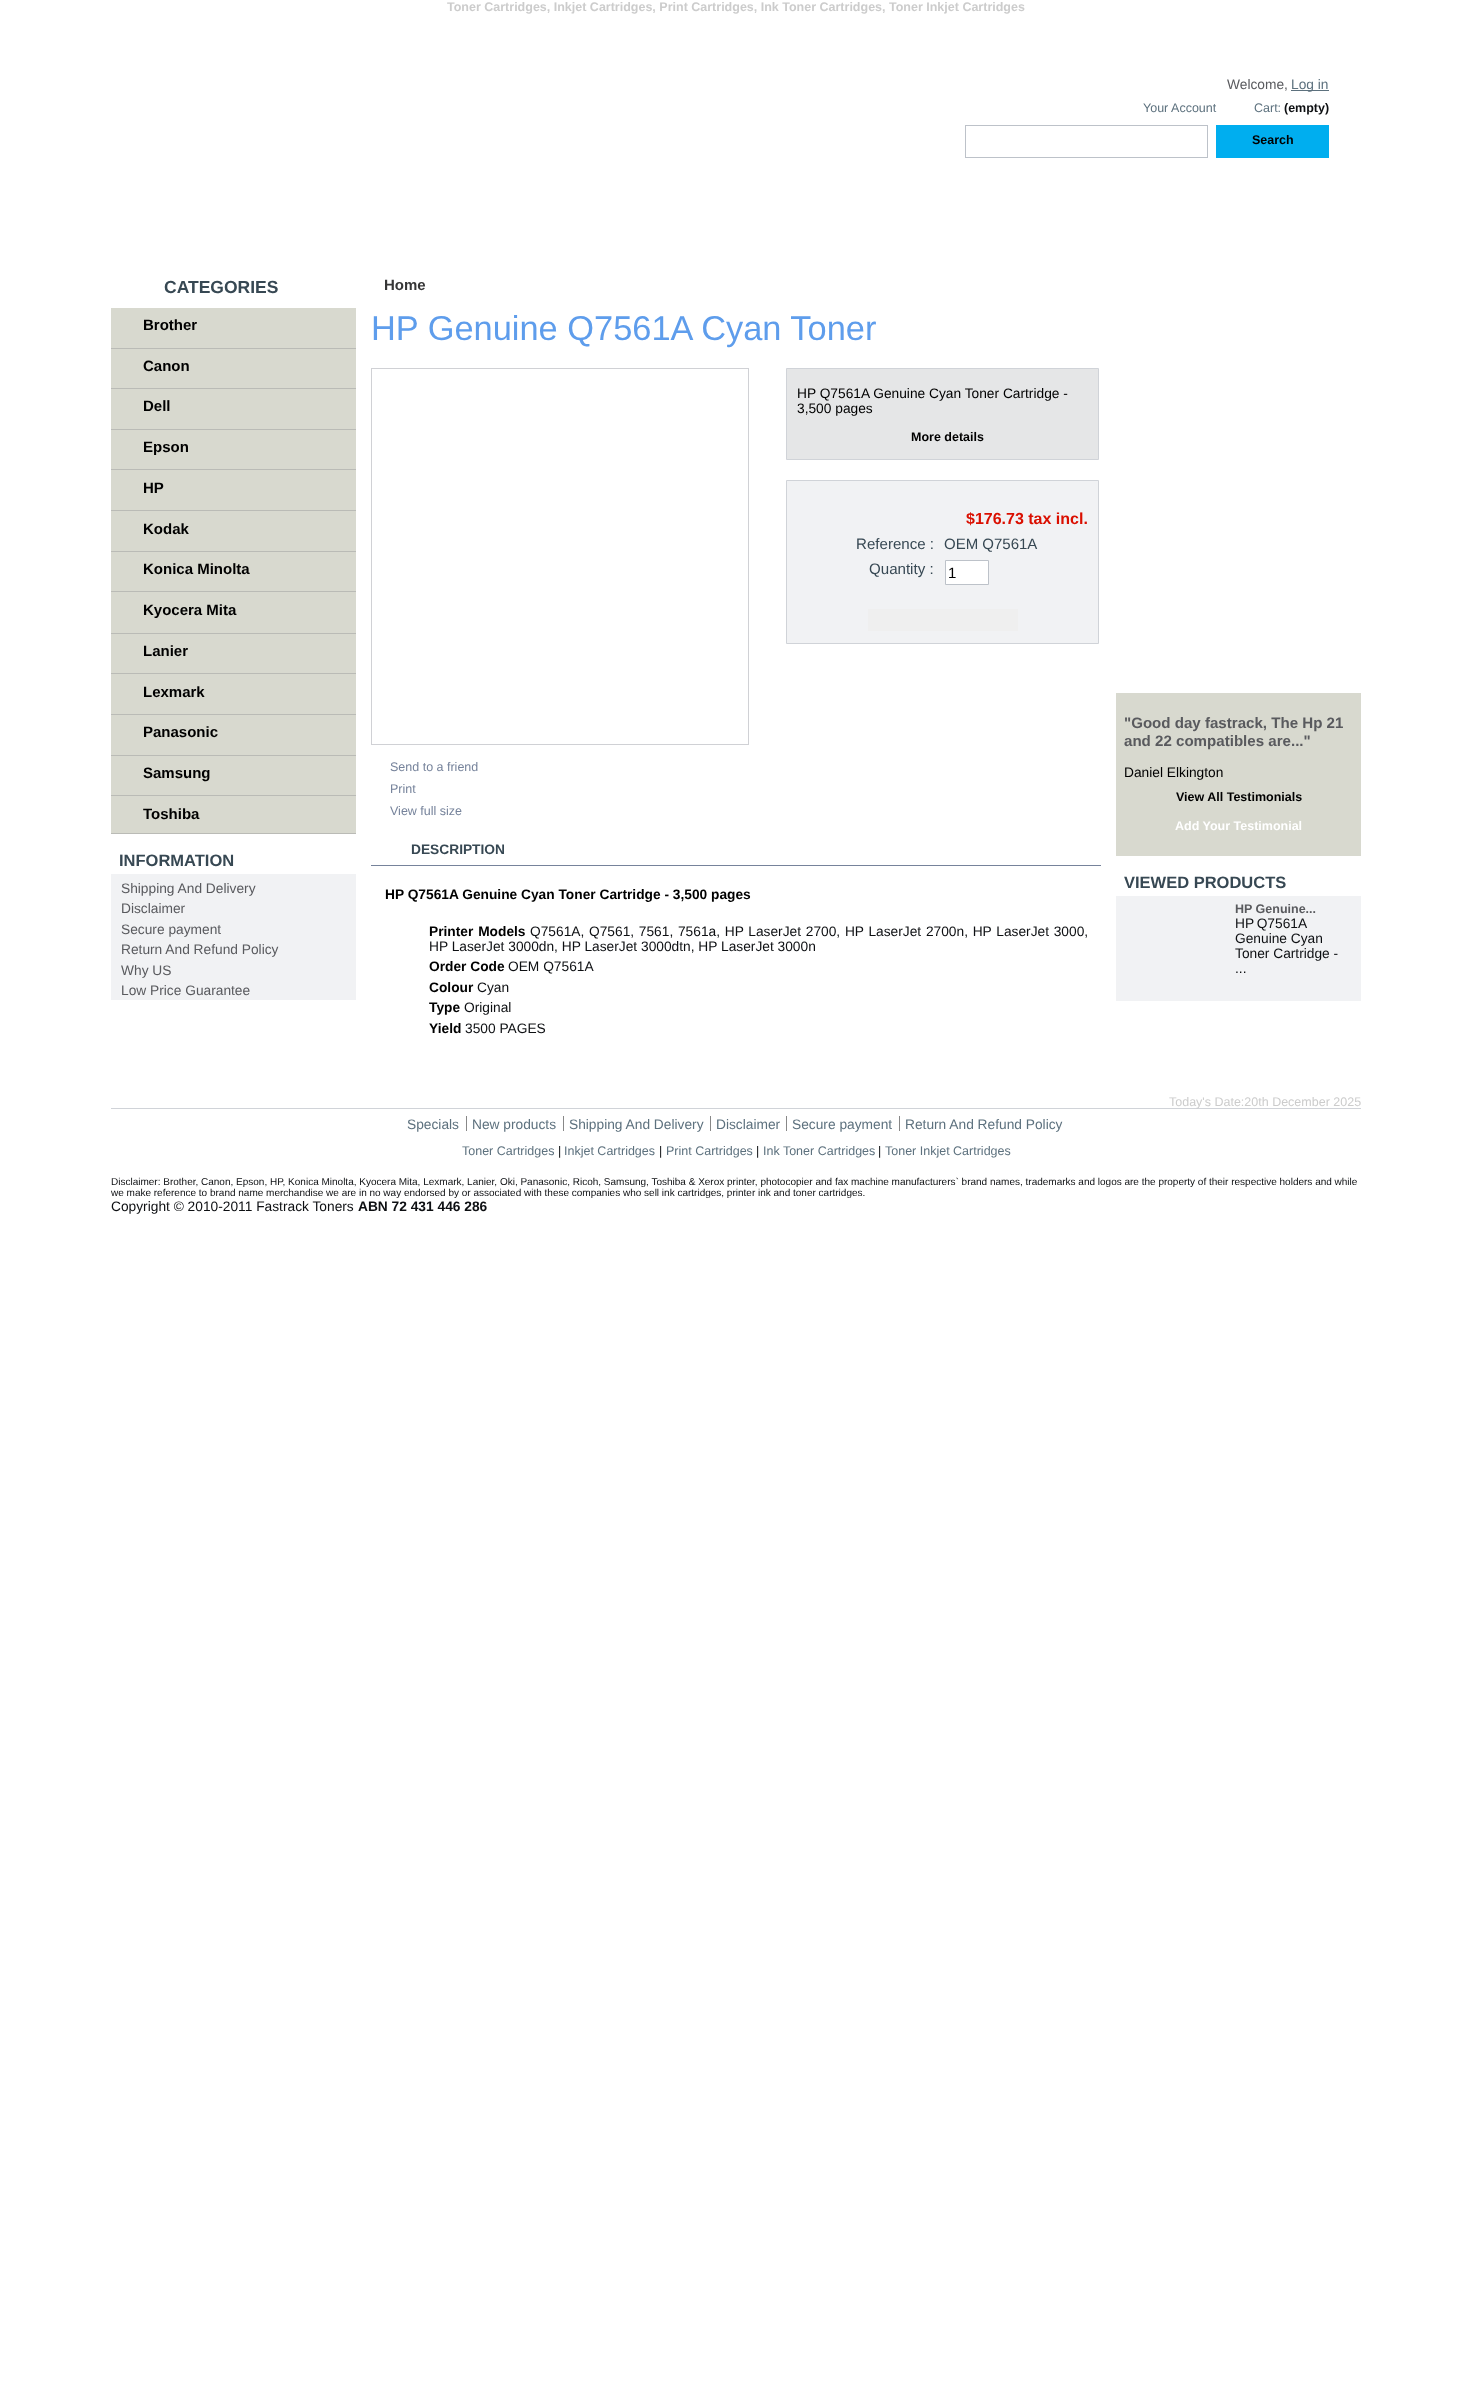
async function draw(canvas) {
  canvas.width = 1472
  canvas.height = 2402
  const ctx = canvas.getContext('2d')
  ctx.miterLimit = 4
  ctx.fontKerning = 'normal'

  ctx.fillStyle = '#fff'
  ctx.fillRect(0, 0, 1472, 2402)
  ctx.font = 'bold 12.5px Liberation Sans'
  ctx.fillStyle = '#ccc'
  ctx.fillText('Toner Cartridges, Inkjet Cartridges, Print Cartridges, Ink Toner Cartridges, Toner Inkjet Cartridges', 447, 11)
  ctx.font = '13.75px Liberation Sans'
  ctx.fillStyle = '#595a5e'
  ctx.fillText('Welcome,', 1227, 89)
  ctx.fillStyle = '#5d717e'
  ctx.fillRect(1291, 90, 38, 1)
  ctx.fillText('Log in', 1291, 89)
  ctx.font = '12.5px Liberation Sans'
  ctx.fillText('Your Account', 1143, 112)
  ctx.fillText('Cart:', 1254, 112)
  ctx.font = 'bold 12.5px Liberation Sans'
  ctx.fillStyle = '#0d0f12'
  ctx.fillText('(empty)', 1284, 112)
  ctx.strokeStyle = '#bdc2c9'
  ctx.strokeRect(965.5, 125.5, 242, 32)
  ctx.fillStyle = '#00aeef'
  ctx.fillRect(1216, 125, 113, 33)
  ctx.fillStyle = '#000'
  ctx.fillText('Search', 1252, 144)
  ctx.font = 'bold 17.5px Liberation Sans'
  ctx.fillStyle = '#374853'
  ctx.fillText('CATEGORIES', 164, 293)
  ctx.fillStyle = '#d8d9cf'
  ctx.fillRect(111, 308, 245, 40)
  ctx.fillStyle = '#babbb6'
  ctx.fillRect(111, 348, 245, 1)
  ctx.font = 'bold 15px Liberation Sans'
  ctx.fillStyle = '#000'
  ctx.fillText('Brother', 143, 330)
  ctx.fillStyle = '#d8d9cf'
  ctx.fillRect(111, 349, 245, 39)
  ctx.fillStyle = '#babbb6'
  ctx.fillRect(111, 388, 245, 1)
  ctx.fillStyle = '#000'
  ctx.fillText('Canon', 143, 371)
  ctx.fillStyle = '#d8d9cf'
  ctx.fillRect(111, 389, 245, 40)
  ctx.fillStyle = '#babbb6'
  ctx.fillRect(111, 429, 245, 1)
  ctx.fillStyle = '#000'
  ctx.fillText('Dell', 143, 411)
  ctx.fillStyle = '#d8d9cf'
  ctx.fillRect(111, 430, 245, 39)
  ctx.fillStyle = '#babbb6'
  ctx.fillRect(111, 469, 245, 1)
  ctx.fillStyle = '#000'
  ctx.fillText('Epson', 143, 452)
  ctx.fillStyle = '#d8d9cf'
  ctx.fillRect(111, 470, 245, 40)
  ctx.fillStyle = '#babbb6'
  ctx.fillRect(111, 510, 245, 1)
  ctx.fillStyle = '#000'
  ctx.fillText('HP', 143, 493)
  ctx.fillStyle = '#d8d9cf'
  ctx.fillRect(111, 511, 245, 122)
  ctx.fillStyle = '#babbb6'
  ctx.fillRect(111, 551, 245, 1)
  ctx.fillStyle = '#000'
  ctx.fillText('Kodak', 143, 534)
  ctx.fillStyle = '#babbb6'
  ctx.fillRect(111, 591, 245, 1)
  ctx.fillStyle = '#000'
  ctx.fillText('Konica Minolta', 143, 574)
  ctx.fillStyle = '#babbb6'
  ctx.fillRect(111, 633, 245, 1)
  ctx.fillStyle = '#000'
  ctx.fillText('Kyocera Mita', 143, 615)
  ctx.fillStyle = '#d8d9cf'
  ctx.fillRect(111, 634, 245, 39)
  ctx.fillStyle = '#babbb6'
  ctx.fillRect(111, 673, 245, 1)
  ctx.fillStyle = '#000'
  ctx.fillText('Lanier', 143, 656)
  ctx.fillStyle = '#d8d9cf'
  ctx.fillRect(111, 674, 245, 40)
  ctx.fillStyle = '#babbb6'
  ctx.fillRect(111, 714, 245, 1)
  ctx.fillStyle = '#000'
  ctx.fillText('Lexmark', 143, 697)
  ctx.fillStyle = '#d8d9cf'
  ctx.fillRect(111, 715, 245, 40)
  ctx.fillStyle = '#babbb6'
  ctx.fillRect(111, 755, 245, 1)
  ctx.fillStyle = '#000'
  ctx.fillText('Panasonic', 143, 737)
  ctx.fillStyle = '#d8d9cf'
  ctx.fillRect(111, 756, 245, 39)
  ctx.fillStyle = '#babbb6'
  ctx.fillRect(111, 795, 245, 1)
  ctx.fillStyle = '#000'
  ctx.fillText('Samsung', 143, 778)
  ctx.fillStyle = '#d8d9cf'
  ctx.fillRect(111, 796, 245, 37)
  ctx.fillStyle = '#babbb6'
  ctx.fillRect(111, 833, 245, 1)
  ctx.fillStyle = '#000'
  ctx.fillText('Toshiba', 143, 819)
  ctx.font = 'bold 16.5px Liberation Sans'
  ctx.fillStyle = '#374853'
  ctx.fillText('INFORMATION', 119, 866)
  ctx.fillStyle = '#f1f2f4'
  ctx.fillRect(111, 874, 245, 126)
  ctx.font = '13.75px Liberation Sans'
  ctx.fillStyle = '#595a5e'
  ctx.fillText('Shipping And Delivery', 121, 893)
  ctx.fillText('Disclaimer', 121, 913)
  ctx.fillText('Secure payment', 121, 934)
  ctx.fillText('Return And Refund Policy', 121, 954)
  ctx.fillText('Why US', 121, 975)
  ctx.fillText('Low Price Guarantee', 121, 995)
  ctx.font = 'bold 15px Liberation Sans'
  ctx.fillStyle = '#363637'
  ctx.fillText('Home', 384, 290)
  ctx.font = '34.4px Liberation Sans'
  ctx.fillStyle = '#5e9dec'
  ctx.fillText('HP Genuine Q7561A Cyan Toner', 371, 340)
  ctx.fillStyle = '#e5e6e7'
  ctx.beginPath()
  ctx.rect(786.5, 368.5, 312, 91)
  ctx.fill()
  ctx.strokeStyle = '#d0d3d8'
  ctx.stroke()
  ctx.font = '13.75px Liberation Sans'
  ctx.fillStyle = '#000'
  ctx.fillText('HP Q7561A Genuine Cyan Toner Cartridge -', 797, 398)
  ctx.fillText('3,500 pages', 797, 413)
  ctx.font = 'bold 12.5px Liberation Sans'
  ctx.fillText('More details', 911, 441)
  ctx.fillStyle = '#f1f2f4'
  ctx.beginPath()
  ctx.rect(786.5, 480.5, 312, 163)
  ctx.fill()
  ctx.stroke()
  ctx.font = 'bold 16px Liberation Sans'
  ctx.fillStyle = '#da0f00'
  ctx.fillText('$176.73 tax incl.', 966, 524)
  ctx.font = '15.1px Liberation Sans'
  ctx.fillStyle = '#374853'
  ctx.fillText('Reference :', 856, 549)
  ctx.font = '15px Liberation Sans'
  ctx.fillText('OEM Q7561A', 944, 549)
  ctx.font = '15.1px Liberation Sans'
  ctx.fillText('Quantity :', 869, 574)
  ctx.fillStyle = '#fff'
  ctx.beginPath()
  ctx.rect(945.5, 560.5, 43, 24)
  ctx.fill()
  ctx.strokeStyle = '#bdc2c9'
  ctx.stroke()
  ctx.font = '15px Liberation Sans'
  ctx.fillStyle = '#000'
  ctx.fillText('1', 948, 578)
  ctx.fillStyle = '#efefef'
  ctx.fillRect(868, 609, 150, 22)
  ctx.strokeStyle = '#d0d1d5'
  ctx.strokeRect(371.5, 368.5, 377, 376)
  ctx.font = '12.5px Liberation Sans'
  ctx.fillStyle = '#76839b'
  ctx.fillText('Send to a friend', 390, 771)
  ctx.fillText('Print', 390, 793)
  ctx.fillText('View full size', 390, 815)
  ctx.fillRect(371, 865, 730, 1)
  ctx.font = 'bold 13.75px Liberation Sans'
  ctx.fillStyle = '#374853'
  ctx.fillText('DESCRIPTION', 411, 854)
  ctx.fillStyle = '#000'
  ctx.fillText('HP Q7561A Genuine Cyan Toner Cartridge - 3,500 pages', 385, 899)
  ctx.wordSpacing = '1px'
  ctx.fillText('Printer Models', 429, 936)
  ctx.wordSpacing = '0.9px'
  ctx.font = '13.75px Liberation Sans'
  ctx.fillStyle = '#0d0f12'
  ctx.fillText('Q7561A, Q7561, 7561, 7561a, HP LaserJet 2700, HP LaserJet 2700n, HP LaserJet 3000,', 530, 936)
  ctx.wordSpacing = '0px'
  ctx.fillText('HP LaserJet 3000dn, HP LaserJet 3000dtn, HP LaserJet 3000n', 429, 951)
  ctx.font = 'bold 13.75px Liberation Sans'
  ctx.fillStyle = '#000'
  ctx.fillText('Order Code', 429, 971)
  ctx.font = '13.75px Liberation Sans'
  ctx.fillStyle = '#0d0f12'
  ctx.fillText('OEM Q7561A', 508, 971)
  ctx.font = 'bold 13.75px Liberation Sans'
  ctx.fillStyle = '#000'
  ctx.fillText('Colour', 429, 992)
  ctx.font = '13.75px Liberation Sans'
  ctx.fillStyle = '#0d0f12'
  ctx.fillText('Cyan', 477, 992)
  ctx.font = 'bold 13.75px Liberation Sans'
  ctx.fillStyle = '#000'
  ctx.fillText('Type', 429, 1012)
  ctx.font = '13.75px Liberation Sans'
  ctx.fillStyle = '#0d0f12'
  ctx.fillText('Original', 464, 1012)
  ctx.font = 'bold 13.75px Liberation Sans'
  ctx.fillStyle = '#000'
  ctx.fillText('Yield', 429, 1033)
  ctx.font = '13.75px Liberation Sans'
  ctx.fillStyle = '#0d0f12'
  ctx.fillText('3500 PAGES', 465, 1033)
  ctx.fillStyle = '#d8d9cf'
  ctx.fillRect(1116, 693, 245, 163)
  ctx.font = 'bold 15.1px Liberation Sans'
  ctx.fillStyle = '#595a5e'
  ctx.fillText('"Good day fastrack, The Hp 21', 1124, 728)
  ctx.fillText('and 22 compatibles are..."', 1124, 746)
  ctx.font = '13.75px Liberation Sans'
  ctx.fillStyle = '#000'
  ctx.fillText('Daniel Elkington', 1124, 777)
  ctx.font = 'bold 12.5px Liberation Sans'
  ctx.fillText('View All Testimonials', 1176, 801)
  ctx.fillStyle = '#fff'
  ctx.fillText('Add Your Testimonial', 1175, 830)
  ctx.font = 'bold 16.5px Liberation Sans'
  ctx.fillStyle = '#374853'
  ctx.fillText('VIEWED PRODUCTS', 1124, 888)
  ctx.fillStyle = '#f1f2f4'
  ctx.fillRect(1116, 896, 245, 105)
  ctx.font = 'bold 12.5px Liberation Sans'
  ctx.fillStyle = '#595a5e'
  ctx.fillText('HP Genuine...', 1235, 913)
  ctx.wordSpacing = '-1px'
  ctx.font = '13.75px Liberation Sans'
  ctx.fillStyle = '#0d0f12'
  ctx.fillText('HP Q7561A', 1235, 928)
  ctx.wordSpacing = '0px'
  ctx.fillText('Genuine Cyan', 1235, 943)
  ctx.fillText('Toner Cartridge -', 1235, 958)
  ctx.fillText('...', 1235, 973)
  ctx.fillStyle = '#d0d3d8'
  ctx.fillRect(111, 1108, 1250, 1)
  ctx.font = '12.5px Liberation Sans'
  ctx.fillStyle = '#ccc'
  ctx.fillText('Today\'s Date:20th December 2025', 1169, 1106)
  ctx.font = '13.75px Liberation Sans'
  ctx.fillStyle = '#5d717e'
  ctx.fillText('Specials', 407, 1129)
  ctx.fillText('New products', 472, 1129)
  ctx.fillStyle = '#888'
  ctx.fillRect(466, 1116, 1, 15)
  ctx.fillStyle = '#5d717e'
  ctx.fillText('Shipping And Delivery', 569, 1129)
  ctx.fillStyle = '#888'
  ctx.fillRect(563, 1116, 1, 15)
  ctx.fillStyle = '#5d717e'
  ctx.fillText('Disclaimer', 716, 1129)
  ctx.fillStyle = '#888'
  ctx.fillRect(710, 1116, 1, 15)
  ctx.fillStyle = '#5d717e'
  ctx.fillText('Secure payment', 792, 1129)
  ctx.fillStyle = '#888'
  ctx.fillRect(786, 1116, 1, 15)
  ctx.fillStyle = '#5d717e'
  ctx.fillText('Return And Refund Policy', 905, 1129)
  ctx.fillStyle = '#888'
  ctx.fillRect(899, 1116, 1, 15)
  ctx.font = '12.5px Liberation Sans'
  ctx.fillStyle = '#5d717e'
  ctx.fillText('Toner Cartridges', 462, 1155)
  ctx.fillStyle = '#0d0f12'
  ctx.fillText('|', 558, 1155)
  ctx.fillStyle = '#5d717e'
  ctx.fillText('Inkjet Cartridges', 564, 1155)
  ctx.fillStyle = '#0d0f12'
  ctx.fillText('|', 659, 1155)
  ctx.fillStyle = '#5d717e'
  ctx.fillText('Print Cartridges', 666, 1155)
  ctx.fillStyle = '#0d0f12'
  ctx.fillText('|', 756, 1155)
  ctx.fillStyle = '#5d717e'
  ctx.fillText('Ink Toner Cartridges', 763, 1155)
  ctx.fillStyle = '#0d0f12'
  ctx.fillText('|', 878, 1155)
  ctx.fillStyle = '#5d717e'
  ctx.fillText('Toner Inkjet Cartridges', 885, 1155)
  ctx.font = '10px Liberation Sans'
  ctx.fillStyle = '#0d0f12'
  ctx.fillText('Disclaimer: Brother, Canon, Epson, HP, Konica Minolta, Kyocera Mita, Lexmark, Lanier, Oki, Panasonic, Ricoh, Samsung, Toshiba & Xerox printer, photocopier and fax machine manufacturers` brand names, trademarks and logos are the property of their respective holders and while', 111, 1185)
  ctx.fillText('we make reference to brand name merchandise we are in no way endorsed by or associated with these companies who sell ink cartridges, printer ink and toner cartridges.', 111, 1196)
  ctx.font = '13.75px Liberation Sans'
  ctx.fillText('Copyright © 2010-2011 Fastrack Toners', 111, 1211)
  ctx.font = 'bold 13.75px Liberation Sans'
  ctx.fillText('ABN 72 431 446 286', 358, 1211)
}

draw(document.querySelector('canvas'))
